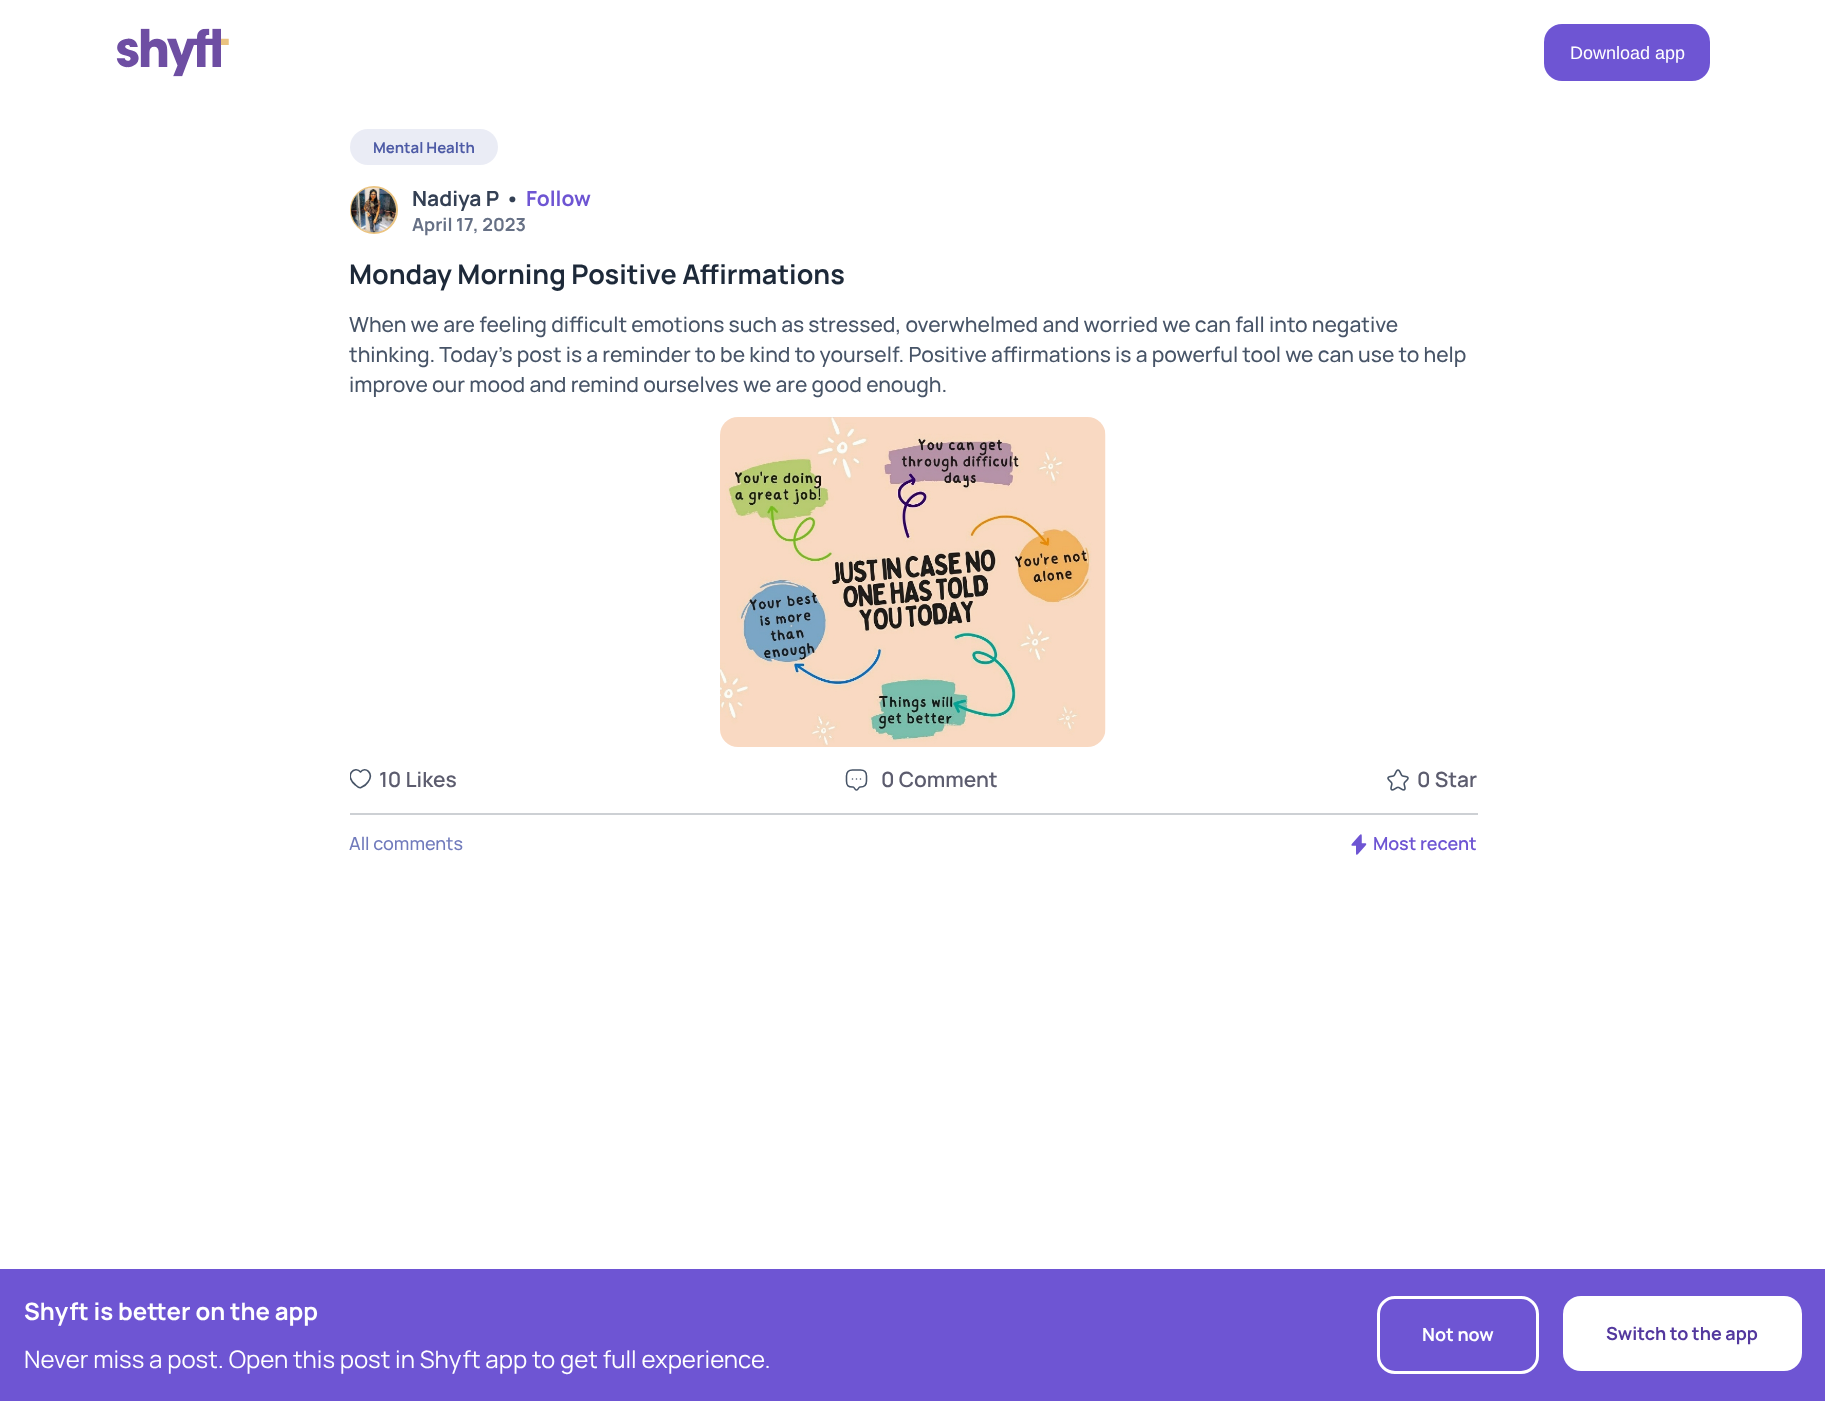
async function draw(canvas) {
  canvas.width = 1825
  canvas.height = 1401
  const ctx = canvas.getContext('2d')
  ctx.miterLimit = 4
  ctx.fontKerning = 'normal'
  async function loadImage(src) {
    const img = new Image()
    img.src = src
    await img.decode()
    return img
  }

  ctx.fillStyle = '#fff'
  ctx.fillRect(0, 0, 1825, 1401)
  ctx.drawImage(await loadImage('image0.png'), 116, 28, 113, 49)
  ctx.fillStyle = '#6e55d3'
  ctx.beginPath()
  ctx.roundRect(1544, 24, 166, 57, 18)
  ctx.fill()
  ctx.font = '18px Liberation Sans'
  ctx.fillStyle = '#fff'
  ctx.fillText('Download app', 1570, 59)
  ctx.fillStyle = '#eaecf5'
  ctx.beginPath()
  ctx.roundRect(350, 129, 148, 36, 18)
  ctx.fill()
  ctx.font = 'bold 15px Manrope'
  ctx.fillStyle = '#4e5ba6'
  ctx.fillText('Mental Health', 373, 153)
  ctx.beginPath()
  ctx.arc(374, 210, 23, 0, 2 * Math.PI)
  ctx.strokeStyle = '#ebc481'
  ctx.lineWidth = 2
  ctx.stroke()
  ctx.drawImage(await loadImage('image1.png'), 351, 187, 45, 46)
  ctx.font = 'bold 21px Manrope'
  ctx.fillStyle = '#344054'
  ctx.fillText('Nadiya P', 412, 206)
  ctx.fillText('•', 505, 206)
  ctx.fillStyle = '#6e55d3'
  ctx.fillText('Follow', 526, 206)
  ctx.font = 'bold 18px Manrope'
  ctx.fillStyle = '#667085'
  ctx.fillText('April 17, 2023', 412, 231)
  ctx.font = 'bold 27px Manrope'
  ctx.fillStyle = '#1d2939'
  ctx.fillText('Monday Morning Positive Affirmations', 349, 284)
  ctx.font = '500 21px Manrope'
  ctx.fillStyle = '#475467'
  ctx.fillText('When we are feeling difficult emotions such as stressed, overwhelmed and worried we can fall into negative', 349, 332)
  ctx.fillText('thinking. Today\'s post is a reminder to be kind to yourself. Positive affirmations is a powerful tool we can use to help', 349, 362)
  ctx.fillText('improve our mood and remind ourselves we are good enough.', 349, 392)
  ctx.drawImage(await loadImage('image2.png'), 720, 417, 386, 330)
  ctx.save()
  ctx.beginPath()
  ctx.rect(350, 768, 24, 24)
  ctx.clip()
  ctx.beginPath()
  ctx.moveTo(361, 787.5)
  ctx.bezierCurveTo(359, 788.5, 356.5, 786, 355.5, 785)
  ctx.bezierCurveTo(343.5, 775.5, 355, 765, 360.5, 772)
  ctx.bezierCurveTo(365, 766, 374.5, 773, 368, 782)
  ctx.bezierCurveTo(366.5, 784.5, 363.5, 786.5, 361, 787.5)
  ctx.closePath()
  ctx.strokeStyle = '#475467'
  ctx.lineWidth = 1.6
  ctx.lineCap = 'round'
  ctx.lineJoin = 'round'
  ctx.stroke()
  ctx.restore()
  ctx.font = '600 21px Manrope'
  ctx.fillStyle = '#5c5c6e'
  ctx.fillText('10 Likes', 379, 787)
  ctx.drawImage(await loadImage('image3.png'), 845, 769, 23, 22)
  ctx.fillText('0 Comment', 881, 787)
  ctx.drawImage(await loadImage('image4.png'), 1387, 769, 22, 22)
  ctx.fillText('0 Star', 1417, 787)
  ctx.fillStyle = '#cdd0d4'
  ctx.fillRect(350, 813, 1128, 2)
  ctx.font = '500 18px Manrope'
  ctx.fillStyle = '#717bbc'
  ctx.fillText('All comments', 349, 850)
  ctx.drawImage(await loadImage('image5.png'), 1351, 834, 16, 21)
  ctx.font = '600 18px Manrope'
  ctx.fillStyle = '#6e55d3'
  ctx.fillText('Most recent', 1373, 850)
  ctx.fillRect(0, 1269, 1825, 132)
  ctx.font = 'bold 24px Manrope'
  ctx.fillStyle = '#fff'
  ctx.fillText('Shyft is better on the app', 24, 1320)
  ctx.font = '24px Manrope'
  ctx.fillText('Never miss a post. Open this post in Shyft app to get full experience.', 24, 1368)
  ctx.beginPath()
  ctx.roundRect(1378.5, 1297.5, 159, 75, 16.5)
  ctx.strokeStyle = '#fff'
  ctx.lineWidth = 3
  ctx.stroke()
  ctx.font = 'bold 18px Manrope'
  ctx.fillText('Not now', 1422, 1341)
  ctx.beginPath()
  ctx.roundRect(1563, 1296, 239, 75, 18)
  ctx.fill()
  ctx.fillStyle = '#53389e'
  ctx.fillText('Switch to the app', 1606, 1340)
}

draw(document.querySelector('canvas'))
